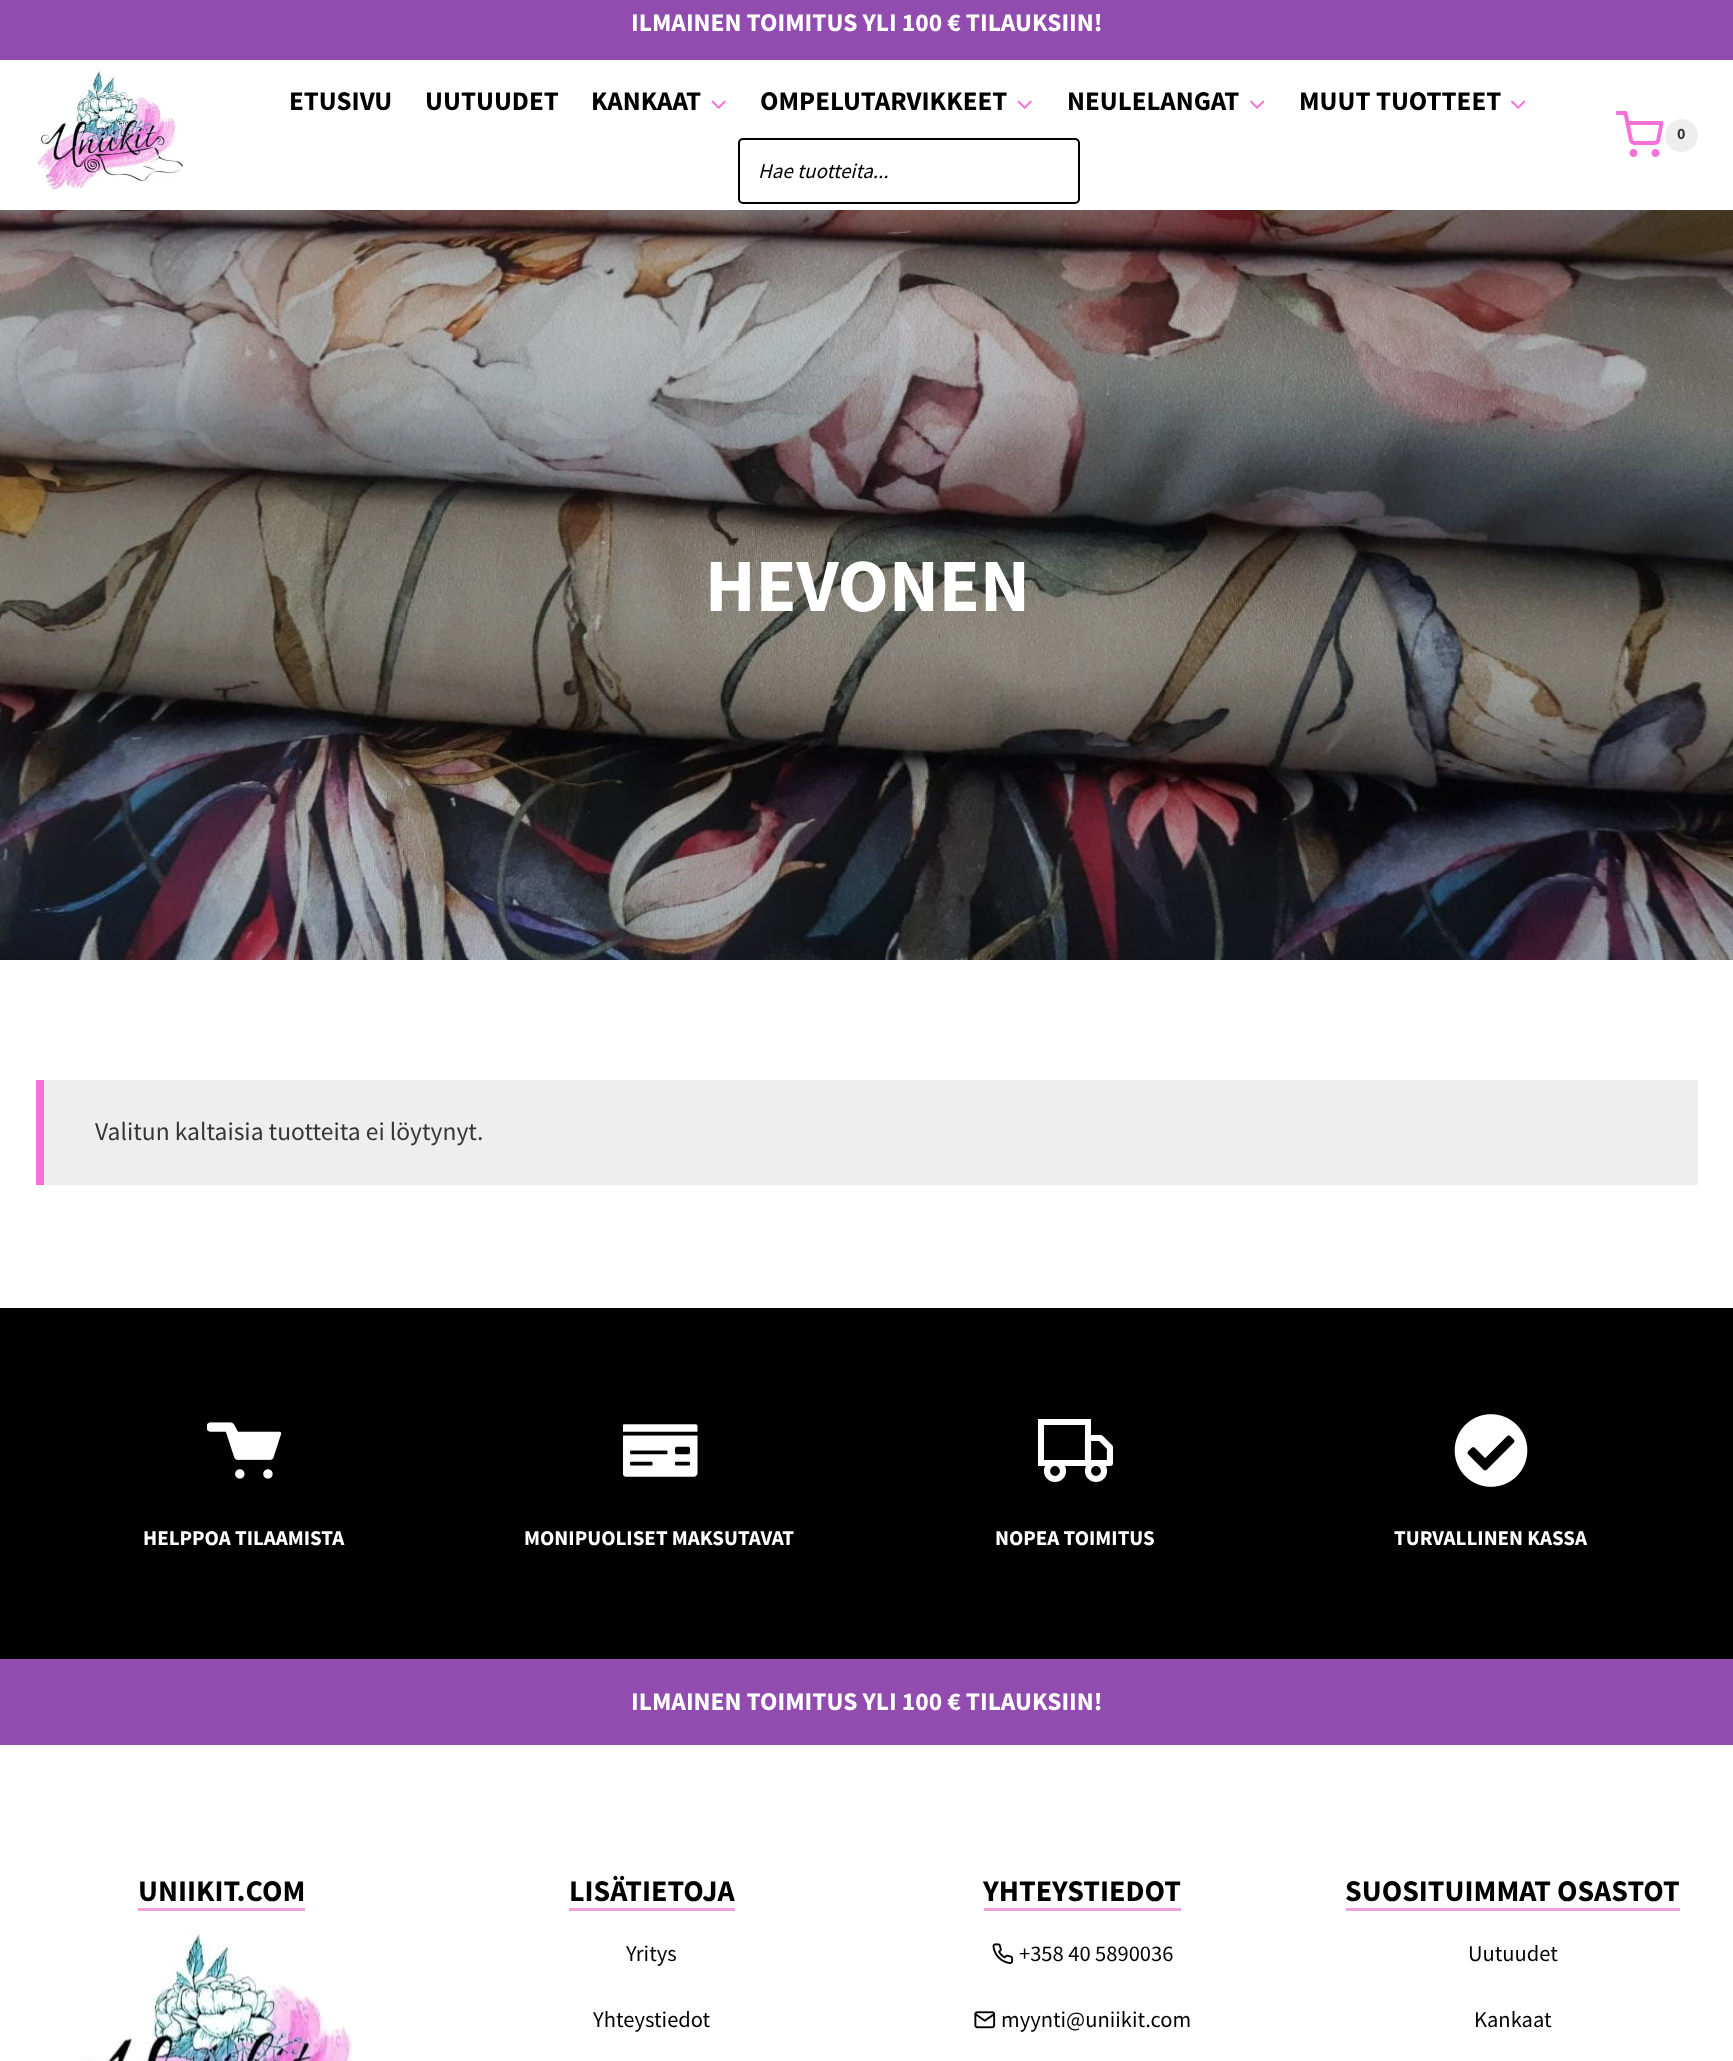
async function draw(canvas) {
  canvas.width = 1733
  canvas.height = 2061
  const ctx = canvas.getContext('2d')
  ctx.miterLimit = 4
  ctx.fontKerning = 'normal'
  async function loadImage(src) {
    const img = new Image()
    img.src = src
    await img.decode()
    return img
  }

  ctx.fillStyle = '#fff'
  ctx.fillRect(0, 0, 1733, 2061)
  ctx.fillStyle = '#924baf'
  ctx.fillRect(0, 0, 1733, 60)
  ctx.font = 'bold 25.5px Source Sans Pro'
  ctx.fillStyle = '#fff'
  ctx.fillText('ILMAINEN TOIMITUS YLI 100 € TILAUKSIIN!', 631, 31)
  ctx.drawImage(await loadImage('image0.png'), 36, 68, 148, 123)
  ctx.font = 'bold 27px Source Sans Pro'
  ctx.fillStyle = '#010101'
  ctx.fillText('ETUSIVU', 289, 110)
  ctx.fillText('UUTUUDET', 425, 110)
  ctx.fillText('KANKAAT', 591, 110)
  ctx.drawImage(await loadImage('image1.png'), 711, 100, 15, 9)
  ctx.fillText('OMPELUTARVIKKEET', 760, 110)
  ctx.drawImage(await loadImage('image1.png'), 1017, 100, 15, 9)
  ctx.fillText('NEULELANGAT', 1067, 110)
  ctx.drawImage(await loadImage('image2.png'), 1250, 100, 15, 9)
  ctx.fillText('MUUT TUOTTEET', 1299, 110)
  ctx.drawImage(await loadImage('image2.png'), 1511, 100, 15, 9)
  ctx.beginPath()
  ctx.roundRect(739, 139, 340, 64, 4)
  ctx.strokeStyle = '#000'
  ctx.lineWidth = 2
  ctx.stroke()
  ctx.font = 'italic 21px Source Sans Pro'
  ctx.fillText('Hae tuotteita...', 758, 178)
  ctx.drawImage(await loadImage('image3.png'), 1616, 111, 48, 46)
  ctx.fillStyle = '#eee'
  ctx.beginPath()
  ctx.arc(1681.5, 135.5, 16.5, 0, 2 * Math.PI)
  ctx.fill()
  ctx.font = 'bold 16px Source Sans Pro'
  ctx.fillStyle = '#353535'
  ctx.fillText('0', 1677, 139)
  ctx.drawImage(await loadImage('image4.png'), 0, 210, 1733, 750)
  ctx.font = 'bold 75px Source Sans Pro'
  ctx.fillStyle = '#fff'
  ctx.fillText('HEVONEN', 705, 611)
  ctx.fillStyle = '#eee'
  ctx.fillRect(44, 1080, 1654, 105)
  ctx.fillStyle = '#f770d6'
  ctx.fillRect(36, 1080, 8, 105)
  ctx.font = '25.5px Source Sans Pro'
  ctx.fillStyle = '#353535'
  ctx.fillText('Valitun kaltaisia tuotteita ei löytynyt.', 95, 1140)
  ctx.fillStyle = '#010101'
  ctx.fillRect(0, 1308, 1733, 351)
  ctx.drawImage(await loadImage('image5.png'), 207, 1422, 75, 57)
  ctx.font = 'bold 21px Source Sans Pro'
  ctx.fillStyle = '#fff'
  ctx.fillText('HELPPOA TILAAMISTA', 143, 1545)
  ctx.drawImage(await loadImage('image6.png'), 623, 1424, 75, 53)
  ctx.fillText('MONIPUOLISET MAKSUTAVAT', 524, 1545)
  ctx.strokeStyle = '#fff'
  ctx.lineWidth = 6
  ctx.strokeRect(1041, 1422, 47, 41)
  ctx.save()
  ctx.beginPath()
  ctx.rect(1038, 1413, 75, 75)
  ctx.clip()
  ctx.beginPath()
  ctx.moveTo(1088, 1438)
  ctx.lineTo(1100.5, 1438)
  ctx.lineTo(1110, 1447.5)
  ctx.lineTo(1110, 1463)
  ctx.lineTo(1088, 1463)
  ctx.closePath()
  ctx.lineWidth = 6.2
  ctx.lineCap = 'round'
  ctx.lineJoin = 'round'
  ctx.stroke()
  ctx.restore()
  ctx.beginPath()
  ctx.arc(1055, 1471, 8, 0, 2 * Math.PI)
  ctx.lineWidth = 6.2
  ctx.stroke()
  ctx.beginPath()
  ctx.arc(1096, 1471, 8, 0, 2 * Math.PI)
  ctx.stroke()
  ctx.fillText('NOPEA TOIMITUS', 995, 1545)
  ctx.drawImage(await loadImage('image7.png'), 1454, 1414, 74, 73)
  ctx.fillText('TURVALLINEN KASSA', 1394, 1545)
  ctx.fillStyle = '#924baf'
  ctx.fillRect(0, 1659, 1733, 86)
  ctx.font = 'bold 25.5px Source Sans Pro'
  ctx.fillStyle = '#fff'
  ctx.fillText('ILMAINEN TOIMITUS YLI 100 € TILAUKSIIN!', 631, 1710)
  ctx.font = 'bold 30px Source Sans Pro'
  ctx.fillStyle = '#010101'
  ctx.fillText('UNIIKIT.COM', 138, 1901)
  ctx.fillStyle = '#f0a0df'
  ctx.fillRect(138, 1908, 167, 3)
  ctx.drawImage(await loadImage('image8.png'), 80, 1928, 272, 133)
  ctx.fillStyle = '#010101'
  ctx.fillText('LISÄTIETOJA', 569, 1901)
  ctx.fillStyle = '#f0a0df'
  ctx.fillRect(569, 1908, 166, 3)
  ctx.font = '22.5px Source Sans Pro'
  ctx.fillStyle = '#010101'
  ctx.fillText('Yritys', 626, 1961)
  ctx.fillText('Yhteystiedot', 593, 2027)
  ctx.font = 'bold 30px Source Sans Pro'
  ctx.fillText('YHTEYSTIEDOT', 983, 1901)
  ctx.fillStyle = '#f0a0df'
  ctx.fillRect(984, 1908, 197, 3)
  ctx.drawImage(await loadImage('image9.png'), 992, 1943, 22, 21)
  ctx.font = '22.5px Source Sans Pro'
  ctx.fillStyle = '#010101'
  ctx.fillText('+358 40 5890036', 1019, 1961)
  ctx.drawImage(await loadImage('image10.png'), 974, 2011, 22, 18)
  ctx.fillText('myynti@uniikit.com', 1001, 2027)
  ctx.font = 'bold 30px Source Sans Pro'
  ctx.fillText('SUOSITUIMMAT OSASTOT', 1345, 1901)
  ctx.fillStyle = '#f0a0df'
  ctx.fillRect(1346, 1908, 334, 3)
  ctx.font = '22.5px Source Sans Pro'
  ctx.fillStyle = '#010101'
  ctx.fillText('Uutuudet', 1468, 1961)
  ctx.fillText('Kankaat', 1474, 2027)
}

draw(document.querySelector('canvas'))
